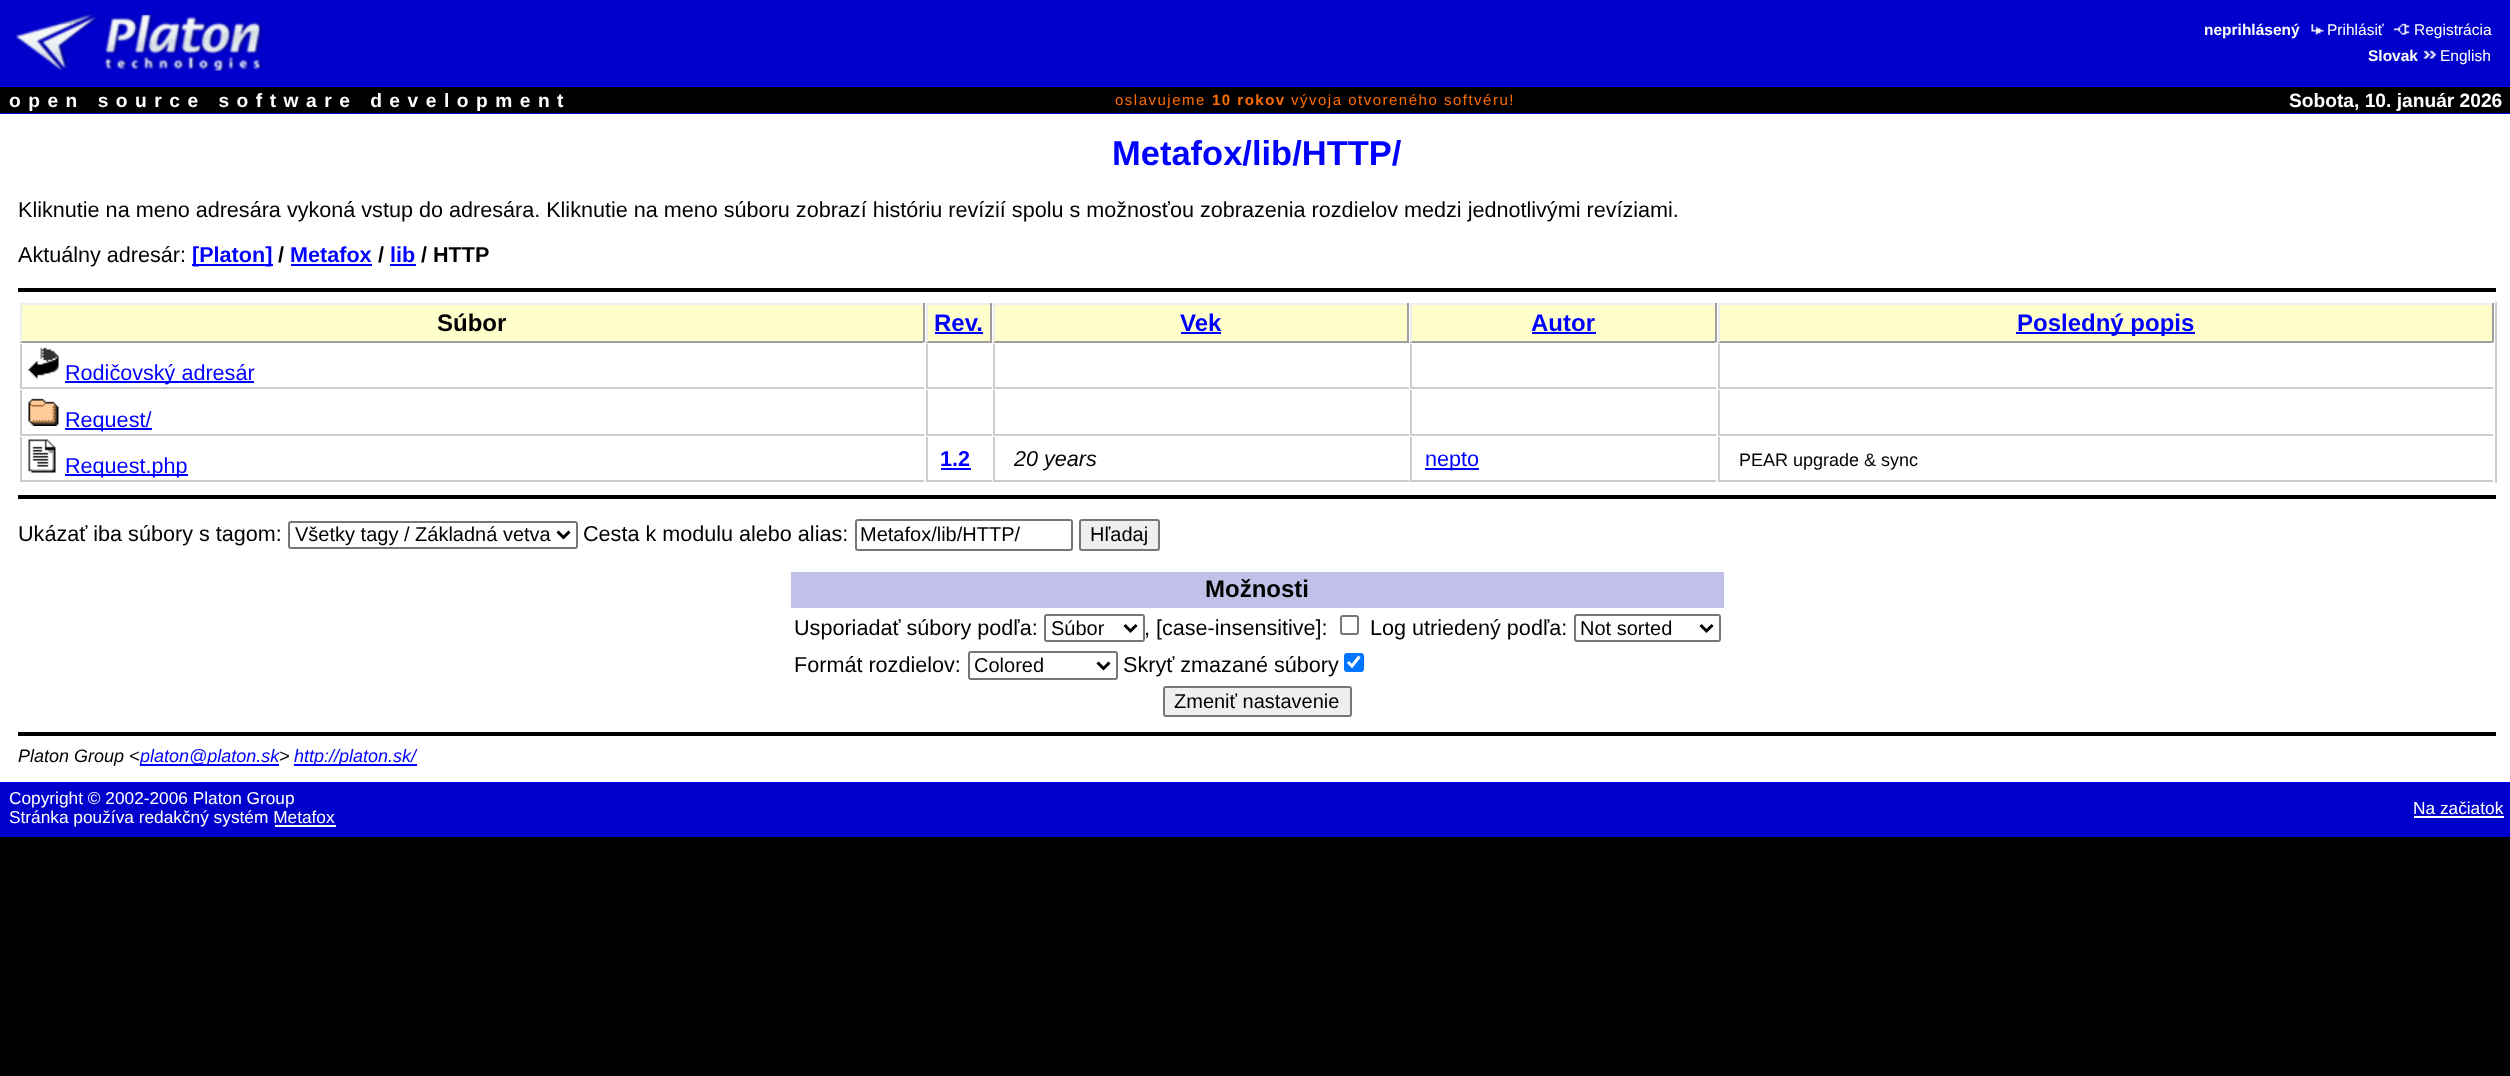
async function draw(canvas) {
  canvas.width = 2510
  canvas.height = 1076
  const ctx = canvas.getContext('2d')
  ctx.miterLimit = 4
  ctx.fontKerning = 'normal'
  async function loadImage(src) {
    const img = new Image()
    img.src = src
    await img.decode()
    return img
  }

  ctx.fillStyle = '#000'
  ctx.fillRect(0, 0, 2510, 1076)
  ctx.fillStyle = '#00c'
  ctx.fillRect(0, 0, 2510, 86)
  ctx.drawImage(await loadImage('image0.png'), 16, 9, 252, 67)
  ctx.font = 'bold 15.5px Liberation Sans'
  ctx.fillStyle = '#fff'
  ctx.fillText('neprihlásený', 2204, 35)
  ctx.drawImage(await loadImage('image1.png'), 2311, 23, 13, 12)
  ctx.font = '15.5px Liberation Sans'
  ctx.fillText('Prihlásiť', 2327, 35)
  ctx.drawImage(await loadImage('image2.png'), 2394, 23, 16, 12)
  ctx.fillText('Registrácia', 2414, 35)
  ctx.font = 'bold 15.5px Liberation Sans'
  ctx.fillText('Slovak', 2368, 61)
  ctx.drawImage(await loadImage('image3.png'), 2423, 50, 14, 9)
  ctx.font = '15.5px Liberation Sans'
  ctx.fillText('English', 2440, 61)
  ctx.fillStyle = '#00f'
  ctx.fillRect(0, 86, 2510, 1)
  ctx.letterSpacing = '7.5px'
  ctx.font = 'bold 19.2px Liberation Sans'
  ctx.fillStyle = '#fff'
  ctx.fillText('open source software development', 9, 107)
  ctx.letterSpacing = '1.5px'
  ctx.font = '15px Liberation Sans'
  ctx.fillStyle = '#ff6c00'
  ctx.fillText('oslavujeme', 1115, 105)
  ctx.font = 'bold 15px Liberation Sans'
  ctx.fillText('10 rokov', 1212, 105)
  ctx.font = '15px Liberation Sans'
  ctx.fillText('vývoja otvoreného softvéru!', 1291, 105)
  ctx.letterSpacing = '0px'
  ctx.font = 'bold 19.2px Liberation Sans'
  ctx.fillStyle = '#fff'
  ctx.fillText('Sobota, 10. január 2026', 2289, 107)
  ctx.fillStyle = '#00f'
  ctx.fillRect(0, 113, 2510, 1)
  ctx.fillStyle = '#fff'
  ctx.fillRect(0, 114, 2510, 668)
  ctx.font = 'bold 34.5px Liberation Sans'
  ctx.fillStyle = '#00f'
  ctx.fillText('Metafox/lib/HTTP/', 1112, 165)
  ctx.font = '21.6px Liberation Sans'
  ctx.fillStyle = '#000'
  ctx.fillText('Kliknutie na meno adresára vykoná vstup do adresára. Kliknutie na meno súboru zobrazí históriu revízií spolu s možnosťou zobrazenia rozdielov medzi jednotlivými revíziami.', 18, 217)
  ctx.fillText('Aktuálny adresár:', 18, 262)
  ctx.fillStyle = '#00f'
  ctx.fillRect(192, 264, 81, 2)
  ctx.font = 'bold 21.6px Liberation Sans'
  ctx.fillText('[Platon]', 192, 262)
  ctx.fillStyle = '#000'
  ctx.fillText('/', 278, 262)
  ctx.fillStyle = '#00f'
  ctx.fillText('Metafox', 290, 262)
  ctx.fillRect(291, 264, 81, 2)
  ctx.fillStyle = '#000'
  ctx.fillText('/', 378, 262)
  ctx.fillStyle = '#00f'
  ctx.fillText('lib', 390, 262)
  ctx.fillRect(390, 264, 26, 2)
  ctx.fillStyle = '#000'
  ctx.fillText('/ HTTP', 421, 262)
  ctx.fillRect(18, 288, 2478, 4)
  ctx.fillStyle = '#ccc'
  ctx.fillRect(2495, 302, 2, 181)
  ctx.fillStyle = '#ffc'
  ctx.fillRect(22, 305, 901, 36)
  ctx.fillStyle = '#eee'
  ctx.fillRect(20, 303, 904, 2)
  ctx.fillStyle = '#9f9f9f'
  ctx.fillRect(923, 303, 2, 39)
  ctx.fillRect(20, 341, 904, 2)
  ctx.fillStyle = '#eee'
  ctx.fillRect(20, 303, 2, 39)
  ctx.font = 'bold 24px Liberation Sans'
  ctx.fillStyle = '#000'
  ctx.fillText('Súbor', 437, 331)
  ctx.fillStyle = '#ffc'
  ctx.fillRect(928, 305, 62, 36)
  ctx.fillStyle = '#eee'
  ctx.fillRect(926, 303, 66, 2)
  ctx.fillStyle = '#9f9f9f'
  ctx.fillRect(990, 303, 2, 39)
  ctx.fillRect(926, 341, 66, 2)
  ctx.fillStyle = '#eee'
  ctx.fillRect(926, 303, 2, 39)
  ctx.fillStyle = '#00f'
  ctx.fillText('Rev.', 934, 331)
  ctx.fillRect(935, 332, 48, 2)
  ctx.fillStyle = '#ffc'
  ctx.fillRect(995, 305, 412, 36)
  ctx.fillStyle = '#eee'
  ctx.fillRect(993, 303, 416, 2)
  ctx.fillStyle = '#9f9f9f'
  ctx.fillRect(1407, 303, 2, 39)
  ctx.fillRect(993, 341, 416, 2)
  ctx.fillStyle = '#eee'
  ctx.fillRect(993, 303, 2, 39)
  ctx.fillStyle = '#00f'
  ctx.fillText('Vek', 1180, 331)
  ctx.fillRect(1181, 332, 40, 2)
  ctx.fillStyle = '#ffc'
  ctx.fillRect(1412, 305, 303, 36)
  ctx.fillStyle = '#eee'
  ctx.fillRect(1410, 303, 306, 2)
  ctx.fillStyle = '#9f9f9f'
  ctx.fillRect(1715, 303, 2, 39)
  ctx.fillRect(1410, 341, 306, 2)
  ctx.fillStyle = '#eee'
  ctx.fillRect(1410, 303, 2, 39)
  ctx.fillStyle = '#00f'
  ctx.fillText('Autor', 1531, 331)
  ctx.fillRect(1532, 332, 64, 2)
  ctx.fillStyle = '#ffc'
  ctx.fillRect(1720, 305, 772, 36)
  ctx.fillStyle = '#eee'
  ctx.fillRect(1718, 303, 775, 2)
  ctx.fillStyle = '#9f9f9f'
  ctx.fillRect(2492, 303, 2, 39)
  ctx.fillRect(1718, 341, 775, 2)
  ctx.fillStyle = '#eee'
  ctx.fillRect(1718, 303, 2, 39)
  ctx.fillStyle = '#00f'
  ctx.fillRect(2016, 332, 179, 2)
  ctx.fillText('Posledný popis', 2017, 331)
  ctx.fillStyle = '#ccc'
  ctx.fillRect(20, 387, 904, 2)
  ctx.fillRect(20, 344, 2, 45)
  ctx.drawImage(await loadImage('image4.png'), 28, 347, 31, 32)
  ctx.fillStyle = '#00f'
  ctx.fillRect(65, 381, 189, 2)
  ctx.font = '21.6px Liberation Sans'
  ctx.fillText('Rodičovský adresár', 65, 380)
  ctx.fillStyle = '#ccc'
  ctx.fillRect(926, 387, 66, 2)
  ctx.fillRect(926, 344, 2, 45)
  ctx.fillRect(993, 387, 416, 2)
  ctx.fillRect(993, 344, 2, 45)
  ctx.fillRect(1410, 387, 306, 2)
  ctx.fillRect(1410, 344, 2, 45)
  ctx.fillRect(1718, 387, 775, 2)
  ctx.fillRect(1718, 344, 2, 45)
  ctx.fillRect(20, 434, 904, 2)
  ctx.fillRect(20, 390, 2, 45)
  ctx.drawImage(await loadImage('image5.png'), 28, 398, 31, 28)
  ctx.fillStyle = '#00f'
  ctx.fillRect(65, 428, 87, 2)
  ctx.fillText('Request/', 65, 427)
  ctx.fillStyle = '#ccc'
  ctx.fillRect(926, 434, 66, 2)
  ctx.fillRect(926, 390, 2, 45)
  ctx.fillRect(993, 434, 416, 2)
  ctx.fillRect(993, 390, 2, 45)
  ctx.fillRect(1410, 434, 306, 2)
  ctx.fillRect(1410, 390, 2, 45)
  ctx.fillRect(1718, 434, 775, 2)
  ctx.fillRect(1718, 390, 2, 45)
  ctx.fillRect(20, 480, 904, 2)
  ctx.fillRect(20, 437, 2, 45)
  ctx.drawImage(await loadImage('image6.png'), 28, 439, 28, 34)
  ctx.fillStyle = '#00f'
  ctx.fillRect(65, 474, 123, 2)
  ctx.fillText('Request.php', 65, 473)
  ctx.fillStyle = '#ccc'
  ctx.fillRect(926, 480, 66, 2)
  ctx.fillRect(926, 437, 2, 45)
  ctx.font = 'bold 21.6px Liberation Sans'
  ctx.fillStyle = '#00f'
  ctx.fillText('1.2', 940, 466)
  ctx.fillRect(941, 468, 30, 2)
  ctx.fillStyle = '#ccc'
  ctx.fillRect(993, 480, 416, 2)
  ctx.fillRect(993, 437, 2, 45)
  ctx.font = 'italic 21.6px Liberation Sans'
  ctx.fillStyle = '#000'
  ctx.fillText('20 years', 1014, 466)
  ctx.fillStyle = '#ccc'
  ctx.fillRect(1410, 480, 306, 2)
  ctx.fillRect(1410, 437, 2, 45)
  ctx.fillStyle = '#00f'
  ctx.fillRect(1425, 468, 54, 2)
  ctx.font = '21.6px Liberation Sans'
  ctx.fillText('nepto', 1425, 466)
  ctx.fillStyle = '#ccc'
  ctx.fillRect(1718, 480, 775, 2)
  ctx.fillRect(1718, 437, 2, 45)
  ctx.font = '18px Liberation Sans'
  ctx.fillStyle = '#000'
  ctx.fillText('PEAR upgrade & sync', 1739, 466)
  ctx.fillRect(18, 495, 2478, 4)
  ctx.font = '21.6px Liberation Sans'
  ctx.fillText('Ukázať iba súbory s tagom:', 18, 541)
  ctx.beginPath()
  ctx.roundRect(289, 522, 288, 26, 2)
  ctx.strokeStyle = '#767676'
  ctx.lineWidth = 2
  ctx.stroke()
  ctx.beginPath()
  ctx.moveTo(557.5, 531.5)
  ctx.lineTo(563.5, 537.5)
  ctx.lineTo(569.5, 531.5)
  ctx.strokeStyle = '#000'
  ctx.lineWidth = 3
  ctx.stroke()
  ctx.font = '20px Liberation Sans'
  ctx.fillText('Všetky tagy / Základná vetva', 295, 541)
  ctx.font = '21.6px Liberation Sans'
  ctx.fillText('Cesta k modulu alebo alias:', 583, 541)
  ctx.beginPath()
  ctx.roundRect(856, 520, 216, 30, 2)
  ctx.strokeStyle = '#767676'
  ctx.lineWidth = 2
  ctx.stroke()
  ctx.font = '20px Liberation Sans'
  ctx.fillText('Metafox/lib/HTTP/', 860, 541)
  ctx.fillStyle = '#efefef'
  ctx.beginPath()
  ctx.roundRect(1080, 520, 79, 30, 2)
  ctx.fill()
  ctx.stroke()
  ctx.fillStyle = '#000'
  ctx.fillText('Hľadaj', 1090, 541)
  ctx.fillStyle = '#c0c0e8'
  ctx.fillRect(791, 572, 933, 36)
  ctx.font = 'bold 24px Liberation Sans'
  ctx.fillStyle = '#000'
  ctx.fillText('Možnosti', 1205, 597)
  ctx.font = '21.6px Liberation Sans'
  ctx.fillText('Usporiadať súbory podľa:', 794, 635)
  ctx.beginPath()
  ctx.roundRect(1045, 615, 99, 26, 2)
  ctx.stroke()
  ctx.beginPath()
  ctx.moveTo(1124.5, 625)
  ctx.lineTo(1130.5, 631)
  ctx.lineTo(1136.5, 625)
  ctx.strokeStyle = '#000'
  ctx.lineWidth = 3
  ctx.stroke()
  ctx.font = '20px Liberation Sans'
  ctx.fillText('Súbor', 1051, 635)
  ctx.font = '21.6px Liberation Sans'
  ctx.fillText(', [case-insensitive]:', 1144, 635)
  ctx.beginPath()
  ctx.roundRect(1341, 616, 17, 18, 2)
  ctx.strokeStyle = '#767676'
  ctx.lineWidth = 2
  ctx.stroke()
  ctx.fillText('Log utriedený podľa:', 1370, 635)
  ctx.beginPath()
  ctx.roundRect(1575, 615, 145, 26, 2)
  ctx.stroke()
  ctx.beginPath()
  ctx.moveTo(1700.5, 625)
  ctx.lineTo(1706.5, 631)
  ctx.lineTo(1712.5, 625)
  ctx.strokeStyle = '#000'
  ctx.lineWidth = 3
  ctx.stroke()
  ctx.font = '20px Liberation Sans'
  ctx.fillText('Not sorted', 1580, 635)
  ctx.font = '21.6px Liberation Sans'
  ctx.fillText('Formát rozdielov:', 794, 672)
  ctx.beginPath()
  ctx.roundRect(969, 652, 148, 27, 2)
  ctx.strokeStyle = '#767676'
  ctx.lineWidth = 2
  ctx.stroke()
  ctx.beginPath()
  ctx.moveTo(1097.5, 662.5)
  ctx.lineTo(1103.5, 668.5)
  ctx.lineTo(1109.5, 662.5)
  ctx.strokeStyle = '#000'
  ctx.lineWidth = 3
  ctx.stroke()
  ctx.font = '20px Liberation Sans'
  ctx.fillText('Colored', 974, 672)
  ctx.font = '21.6px Liberation Sans'
  ctx.fillText('Skryť zmazané súbory', 1123, 672)
  ctx.fillStyle = '#0075ff'
  ctx.beginPath()
  ctx.roundRect(1344, 653, 20, 19, 3)
  ctx.fill()
  ctx.beginPath()
  ctx.moveTo(1348, 662)
  ctx.lineTo(1352, 666)
  ctx.lineTo(1359.5, 656.5)
  ctx.strokeStyle = '#fff'
  ctx.lineWidth = 3.1
  ctx.stroke()
  ctx.fillStyle = '#efefef'
  ctx.beginPath()
  ctx.roundRect(1164, 687, 187, 29, 2)
  ctx.fill()
  ctx.strokeStyle = '#767676'
  ctx.lineWidth = 2
  ctx.stroke()
  ctx.font = '20px Liberation Sans'
  ctx.fillStyle = '#000'
  ctx.fillText('Zmeniť nastavenie', 1174, 708)
  ctx.fillRect(18, 732, 2478, 4)
  ctx.font = 'italic 18px Liberation Sans'
  ctx.fillText('Platon Group <', 18, 762)
  ctx.fillStyle = '#00f'
  ctx.fillRect(140, 764, 139, 2)
  ctx.fillText('platon@platon.sk', 140, 762)
  ctx.fillStyle = '#000'
  ctx.fillText('>', 279, 762)
  ctx.fillStyle = '#00f'
  ctx.fillRect(294, 764, 123, 2)
  ctx.fillText('http://platon.sk/', 294, 762)
  ctx.fillRect(0, 782, 2510, 1)
  ctx.fillStyle = '#00c'
  ctx.fillRect(0, 783, 2510, 54)
  ctx.font = '17.3px Liberation Sans'
  ctx.fillStyle = '#fff'
  ctx.fillText('Copyright © 2002-2006 Platon Group', 9, 804)
  ctx.fillText('Stránka používa redakčný systém Metafox', 9, 823)
  ctx.fillRect(275, 825, 61, 2)
  ctx.fillText('Na začiatok', 2413, 814)
  ctx.fillRect(2414, 816, 90, 2)
}

draw(document.querySelector('canvas'))
